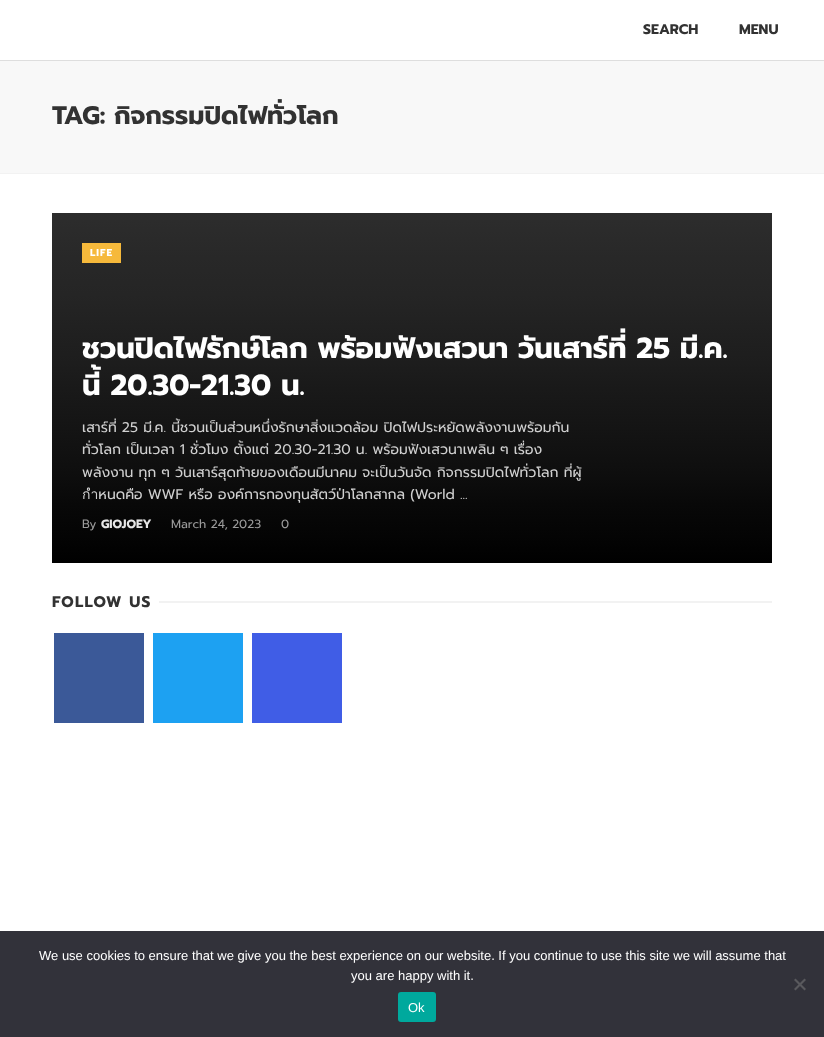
async function draw(canvas) {
  canvas.width = 824
  canvas.height = 1037
  const ctx = canvas.getContext('2d')
  ctx.miterLimit = 4
  ctx.fontKerning = 'normal'
  let gradient

  ctx.fillStyle = '#fff'
  ctx.fillRect(0, 0, 824, 1037)
  ctx.strokeStyle = '#f2f2f2'
  ctx.strokeRect(-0.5, 59.5, 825, 114)
  ctx.fillRect(0, 59, 824, 1)
  ctx.fillStyle = '#dedede'
  ctx.fillRect(0, 60, 824, 1)
  ctx.font = 'bold 14px Prompt'
  ctx.fillStyle = '#323232'
  ctx.fillText('SEARCH', 643, 34)
  ctx.fillText('MENU', 739, 34)
  ctx.fillStyle = '#f8f8f8'
  ctx.fillRect(0, 61, 824, 112)
  ctx.font = 'bold 25.25px Prompt'
  ctx.fillStyle = '#323232'
  ctx.fillText('TAG: กิจกรรมปิดไฟทั่วโลก', 52, 124)
  gradient = ctx.createLinearGradient(412, 563, 412, 37)
  gradient.addColorStop(0, '#000')
  gradient.addColorStop(0.05, '#040404')
  gradient.addColorStop(0.11, '#080808')
  gradient.addColorStop(0.16, '#0d0d0d')
  gradient.addColorStop(0.21, '#111')
  gradient.addColorStop(0.27, '#151515')
  gradient.addColorStop(0.33, '#191919')
  gradient.addColorStop(0.38, '#1d1d1d')
  gradient.addColorStop(0.45, '#212121')
  gradient.addColorStop(0.51, '#252525')
  gradient.addColorStop(0.58, '#282828')
  gradient.addColorStop(0.65, '#2c2c2c')
  gradient.addColorStop(0.73, '#2e2e2e')
  gradient.addColorStop(0.81, '#313131')
  gradient.addColorStop(0.91, '#323232')
  gradient.addColorStop(1, '#333')
  ctx.fillStyle = gradient
  ctx.fillRect(52, 213, 720, 350)
  ctx.fillStyle = '#f6b93b'
  ctx.fillRect(82, 243, 39, 20)
  ctx.letterSpacing = '1px'
  ctx.font = 'bold 10px Prompt'
  ctx.fillStyle = '#fff'
  ctx.fillText('LIFE', 90, 256)
  ctx.letterSpacing = '0px'
  ctx.font = 'bold 29px Prompt'
  ctx.fillText('ชวนปิดไฟรักษ์โลก พร้อมฟังเสวนา วันเสาร์ที่ 25 มี.ค.', 82, 358)
  ctx.fillText('นี้ 20.30-21.30 น.', 82, 395)
  ctx.font = '14px Prompt'
  ctx.fillStyle = '#d0d0d0'
  ctx.fillText('เสาร์ที่ 25 มี.ค. นี้ชวนเป็นส่วนหนึ่งรักษาสิ่งแวดล้อม ปิดไฟประหยัดพลังงานพร้อมกัน', 82, 432)
  ctx.fillText('ทั่วโลก เป็นเวลา 1 ชั่วโมง ตั้งแต่ 20.30-21.30 น. พร้อมฟังเสวนาเพลิน ๆ เรื่อง', 82, 454)
  ctx.fillText('พลังงาน ทุก ๆ วันเสาร์สุดท้ายของเดือนมีนาคม จะเป็นวันจัด กิจกรรมปิดไฟทั่วโลก ที่ผู้', 82, 477)
  ctx.fillText('กำหนดคือ WWF หรือ องค์การกองทุนสัตว์ป่าโลกสากล (World ...', 82, 499)
  ctx.font = '12px Prompt'
  ctx.fillStyle = '#9b9b9b'
  ctx.fillText('By', 82, 528)
  ctx.font = 'bold 12px Prompt'
  ctx.fillStyle = '#e6e6e6'
  ctx.fillText('GIOJOEY', 101, 528)
  ctx.font = '12px Prompt'
  ctx.fillStyle = '#9b9b9b'
  ctx.fillText('March 24, 2023', 171, 528)
  ctx.fillText('0', 281, 528)
  ctx.letterSpacing = '1.25px'
  ctx.font = 'bold 15.5px Prompt'
  ctx.fillStyle = '#323232'
  ctx.fillText('FOLLOW US', 52, 607)
  ctx.fillStyle = '#f2f2f2'
  ctx.fillRect(159, 601, 613, 2)
  ctx.fillStyle = '#3b5998'
  ctx.fillRect(54, 633, 90, 90)
  ctx.fillStyle = '#1da1f2'
  ctx.fillRect(153, 633, 90, 90)
  ctx.fillStyle = '#405de6'
  ctx.fillRect(252, 633, 90, 90)
  ctx.fillStyle = '#32323a'
  ctx.fillRect(0, 931, 824, 106)
  ctx.letterSpacing = '0px'
  ctx.font = '13px Liberation Sans'
  ctx.fillStyle = '#fff'
  ctx.fillText('We use cookies to ensure that we give you the best experience on our website. If you continue to use this site we will assume that', 39, 960)
  ctx.fillText('you are happy with it.', 351, 980)
  ctx.fillStyle = '#59595d'
  ctx.beginPath()
  ctx.moveTo(804.5, 978.5)
  ctx.lineTo(806, 980)
  ctx.lineTo(795.5, 990.5)
  ctx.lineTo(794, 989)
  ctx.closePath()
  ctx.fill()
  ctx.beginPath()
  ctx.moveTo(794, 980)
  ctx.lineTo(795.5, 978.5)
  ctx.lineTo(806, 989)
  ctx.lineTo(804.5, 990.5)
  ctx.closePath()
  ctx.fill()
  ctx.fillStyle = '#00a99d'
  ctx.beginPath()
  ctx.roundRect(398, 992, 38, 30, 3)
  ctx.fill()
  ctx.fillStyle = '#fff'
  ctx.fillText('Ok', 408, 1012)
}

draw(document.querySelector('canvas'))
